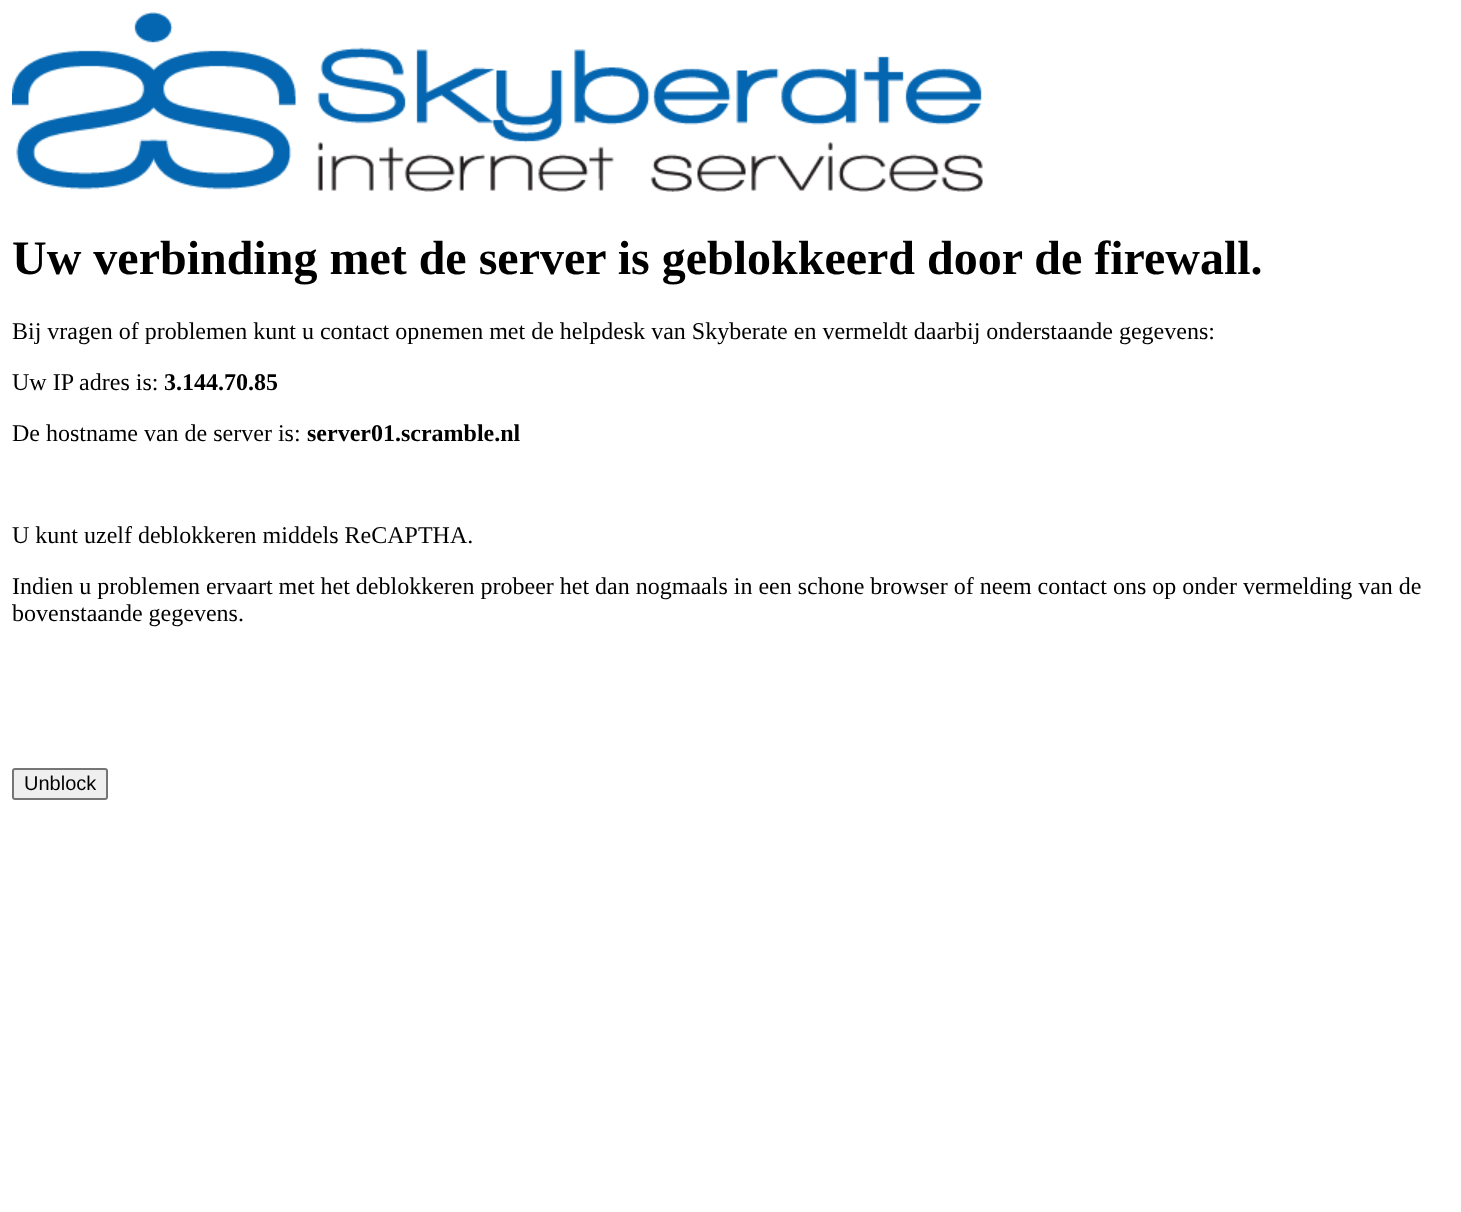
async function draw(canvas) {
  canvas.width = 1461
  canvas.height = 1212
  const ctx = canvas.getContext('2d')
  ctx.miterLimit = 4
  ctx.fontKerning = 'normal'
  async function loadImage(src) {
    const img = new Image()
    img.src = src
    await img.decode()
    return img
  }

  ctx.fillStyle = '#fff'
  ctx.fillRect(0, 0, 1461, 1212)
  ctx.drawImage(await loadImage('image0.png'), 12, 12, 971, 180)
  ctx.font = 'bold 48px Liberation Serif'
  ctx.fillStyle = '#000'
  ctx.fillText('Uw verbinding met de server is geblokkeerd door de firewall.', 12, 274)
  ctx.font = '24px Liberation Serif'
  ctx.fillText('Bij vragen of problemen kunt u contact opnemen met de helpdesk van Skyberate en vermeldt daarbij onderstaande gegevens:', 12, 339)
  ctx.fillText('Uw IP adres is:', 12, 390)
  ctx.font = 'bold 24px Liberation Serif'
  ctx.fillText('3.144.70.85', 164, 390)
  ctx.font = '24px Liberation Serif'
  ctx.fillText('De hostname van de server is:', 12, 441)
  ctx.font = 'bold 24px Liberation Serif'
  ctx.fillText('server01.scramble.nl', 307, 441)
  ctx.font = '24px Liberation Serif'
  ctx.fillText('U kunt uzelf deblokkeren middels ReCAPTHA.', 12, 543)
  ctx.fillText('Indien u problemen ervaart met het deblokkeren probeer het dan nogmaals in een schone browser of neem contact ons op onder vermelding van de', 12, 594)
  ctx.fillText('bovenstaande gegevens.', 12, 621)
  ctx.fillStyle = '#efefef'
  ctx.beginPath()
  ctx.roundRect(13, 769, 94, 30, 2)
  ctx.fill()
  ctx.strokeStyle = '#767676'
  ctx.lineWidth = 2
  ctx.stroke()
  ctx.font = '20px Liberation Sans'
  ctx.fillStyle = '#000'
  ctx.fillText('Unblock', 24, 790)
}

draw(document.querySelector('canvas'))
